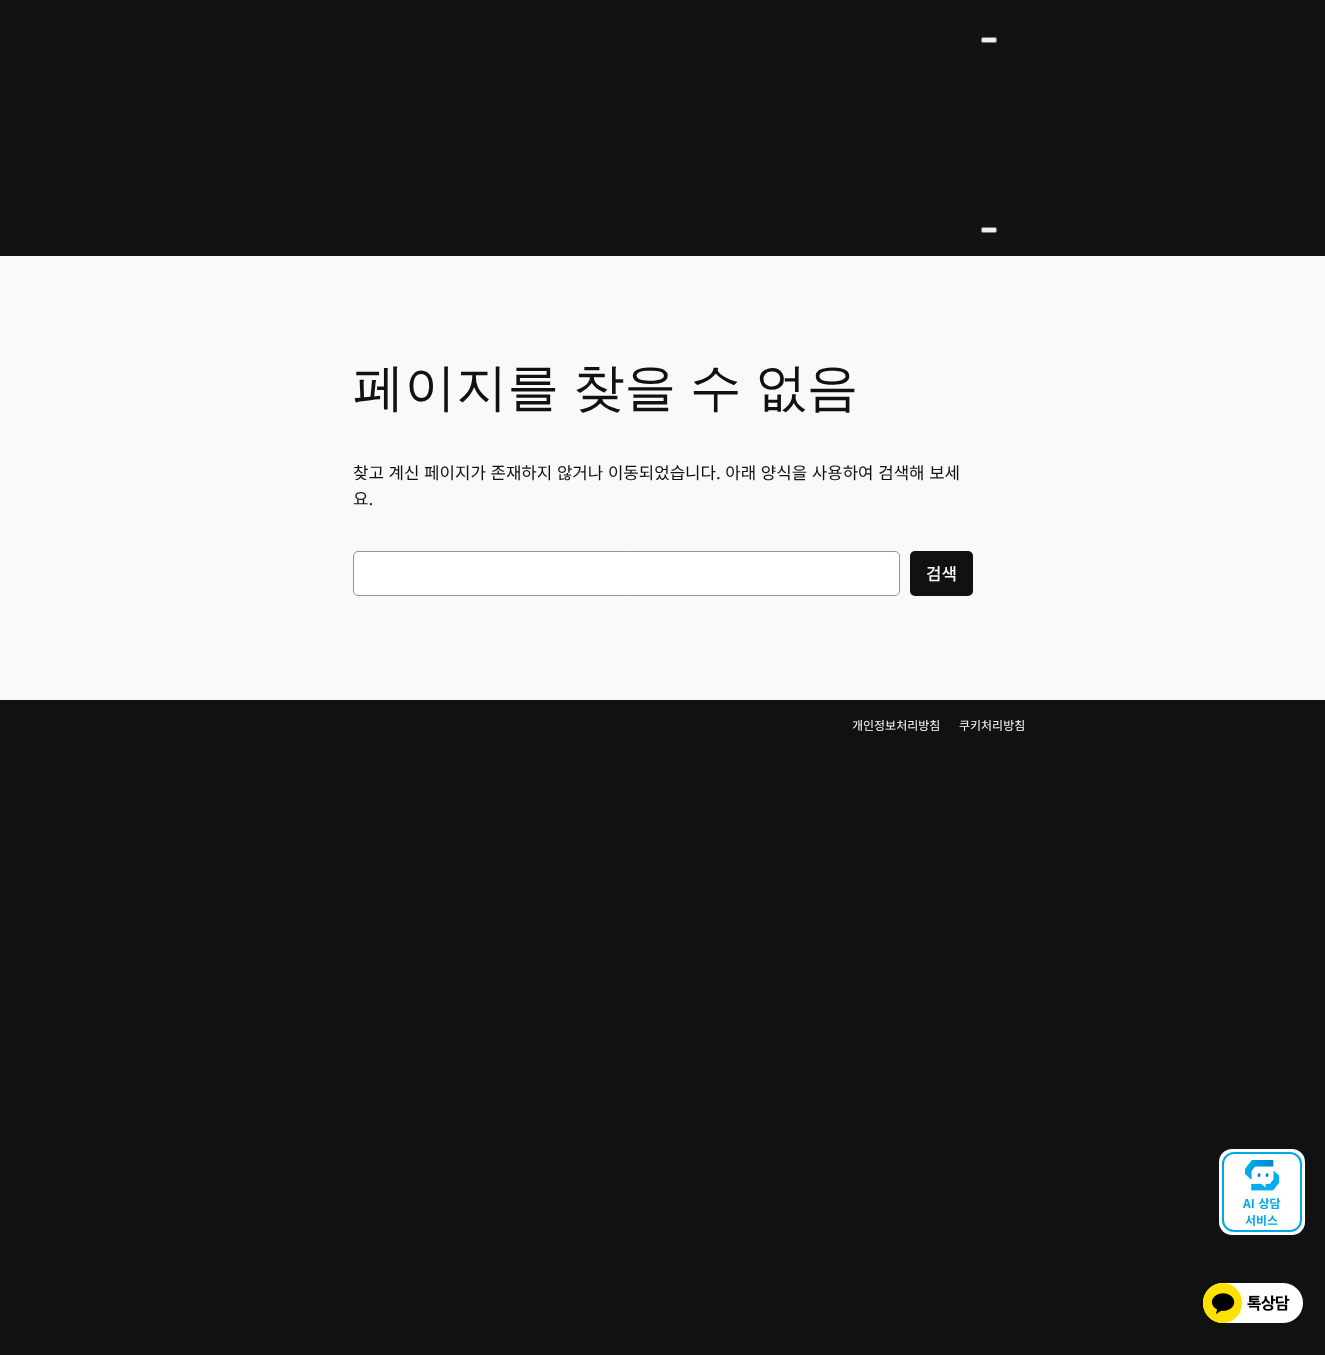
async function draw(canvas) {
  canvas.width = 1325
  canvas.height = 1355
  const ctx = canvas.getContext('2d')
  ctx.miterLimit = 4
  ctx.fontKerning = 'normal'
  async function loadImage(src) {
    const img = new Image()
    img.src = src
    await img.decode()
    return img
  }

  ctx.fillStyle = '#f9f9f9'
  ctx.fillRect(0, 0, 1325, 1355)
  ctx.fillStyle = '#121212'
  ctx.fillRect(0, 0, 1325, 256)
  ctx.fillStyle = '#efefef'
  ctx.beginPath()
  ctx.roundRect(981.5, 37.5, 15, 5, 1.5)
  ctx.fill()
  ctx.strokeStyle = '#767676'
  ctx.stroke()
  ctx.beginPath()
  ctx.roundRect(981.5, 227.5, 15, 5, 1.5)
  ctx.fill()
  ctx.stroke()
  ctx.wordSpacing = '-1.5px'
  ctx.font = '500 51.5px WenQuanYi Zen Hei'
  ctx.fillStyle = '#111'
  ctx.fillText('페이지를 찾을 수 없음', 353, 405)
  ctx.wordSpacing = '0.9px'
  ctx.font = '16.8px Noto Sans KR'
  ctx.fillText('찾고 계신 페이지가 존재하지 않거나 이동되었습니다. 아래 양식을 사용하여 검색해 보세', 353, 479)
  ctx.wordSpacing = '0px'
  ctx.fillText('요.', 353, 505)
  ctx.fillStyle = '#fff'
  ctx.beginPath()
  ctx.roundRect(353.5, 551.5, 546, 44, 4.5)
  ctx.fill()
  ctx.strokeStyle = '#949494'
  ctx.stroke()
  ctx.fillStyle = '#111'
  ctx.beginPath()
  ctx.roundRect(910, 551, 63, 45, 5)
  ctx.fill()
  ctx.font = '500 16.8px Noto Sans KR'
  ctx.fillStyle = '#f9f9f9'
  ctx.fillText('검색', 926, 580)
  ctx.fillStyle = '#111'
  ctx.fillRect(0, 700, 1325, 655)
  ctx.font = '12px Noto Sans KR'
  ctx.fillStyle = '#fff'
  ctx.fillText('개인정보처리방침', 852, 730)
  ctx.fillText('쿠키처리방침', 959, 730)
  ctx.beginPath()
  ctx.roundRect(1219, 1149, 86, 86, 13)
  ctx.fill()
  ctx.beginPath()
  ctx.roundRect(1223, 1153, 78, 78, 11)
  ctx.strokeStyle = '#00a8ea'
  ctx.lineWidth = 2
  ctx.stroke()
  ctx.drawImage(await loadImage('image0.png'), 1245, 1160, 34, 31)
  ctx.wordSpacing = '1px'
  ctx.font = 'bold 12px Noto Sans KR'
  ctx.fillStyle = '#00a8ea'
  ctx.fillText('AI 상담', 1243, 1208)
  ctx.wordSpacing = '0px'
  ctx.fillText('서비스', 1245, 1225)
  ctx.drawImage(await loadImage('image1.png'), 1203, 1283, 100, 40)
}

draw(document.querySelector('canvas'))
